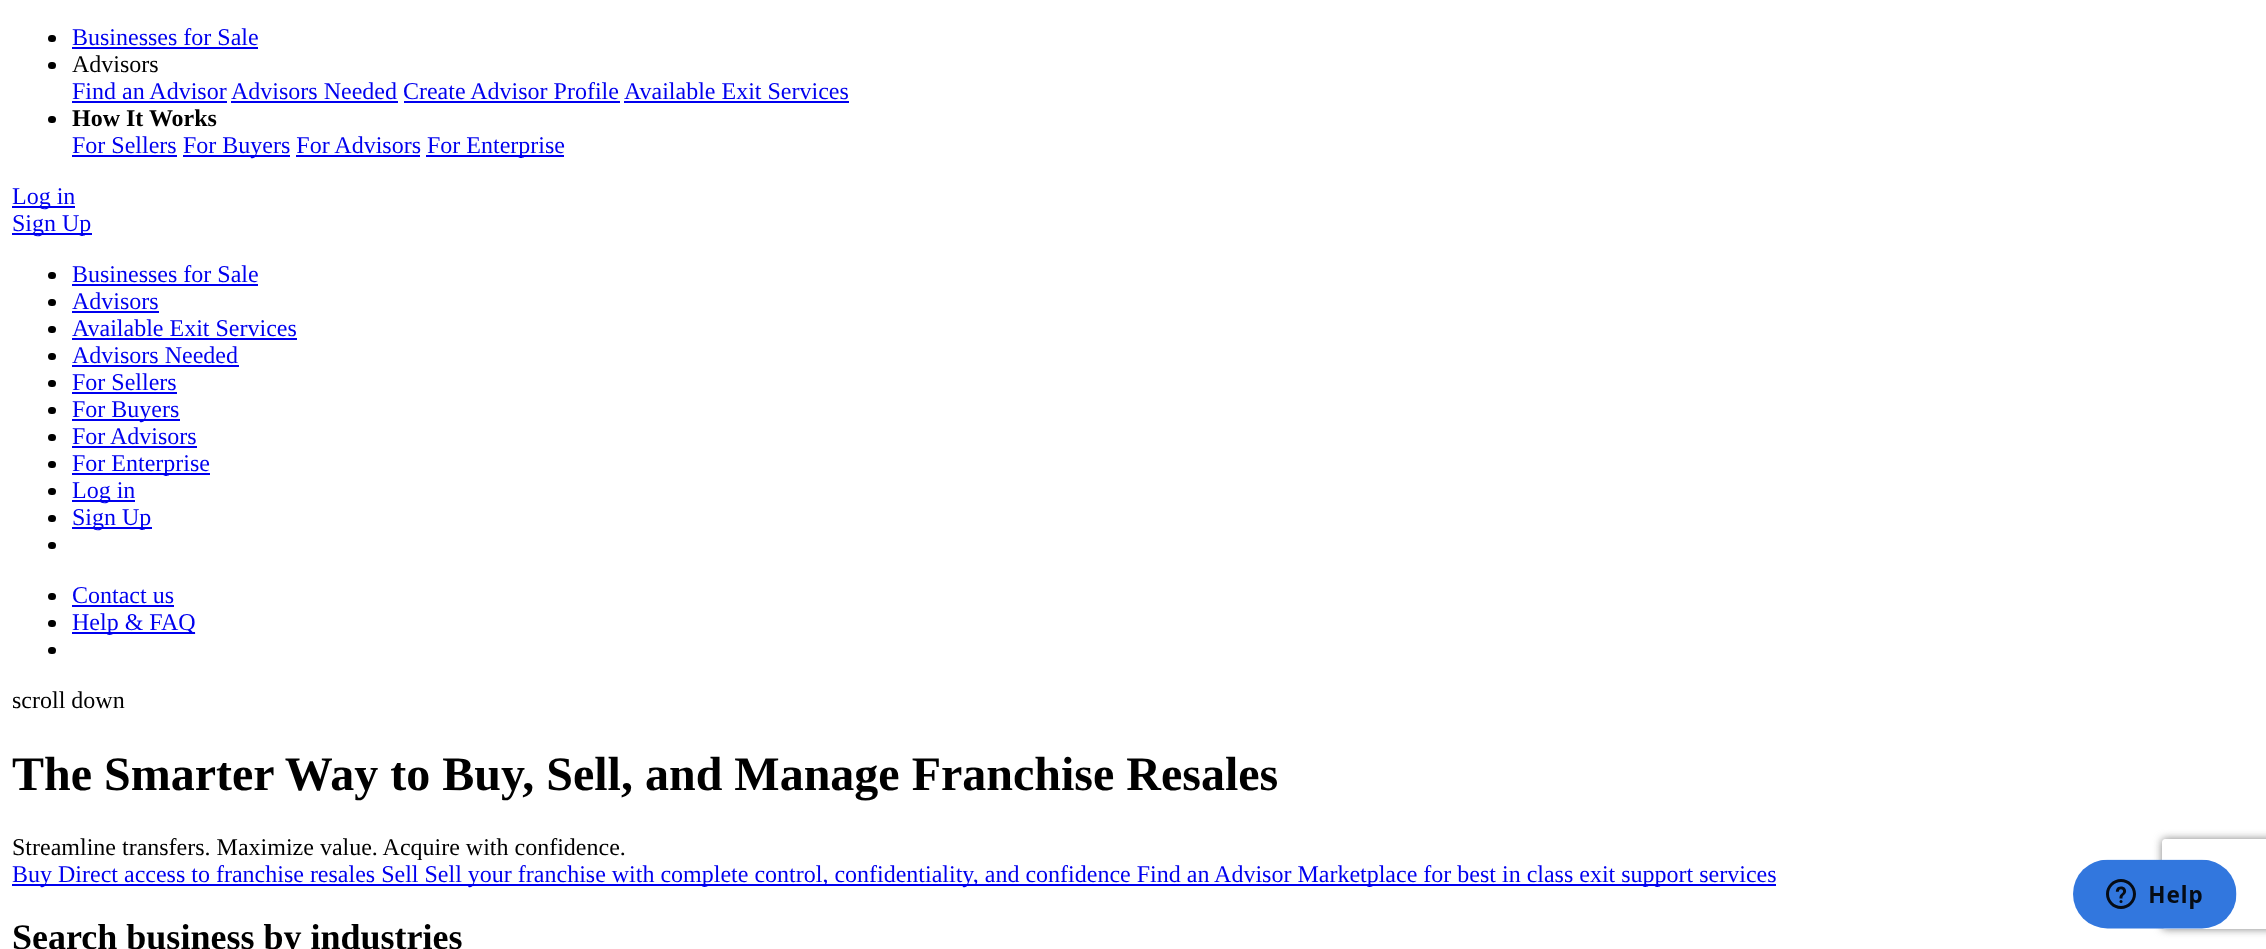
async function draw(canvas) {
  canvas.width = 2266
  canvas.height = 949
  const ctx = canvas.getContext('2d')
  ctx.miterLimit = 4
  ctx.fontKerning = 'normal'
  async function loadImage(src) {
    const img = new Image()
    img.src = src
    await img.decode()
    return img
  }

  ctx.fillStyle = '#fff'
  ctx.fillRect(0, 0, 2266, 949)
  ctx.fillStyle = '#000'
  ctx.beginPath()
  ctx.roundRect(48, 35, 8, 7, 3.5)
  ctx.fill()
  ctx.font = '24px Liberation Serif'
  ctx.fillStyle = '#00e'
  ctx.fillText('Businesses for Sale', 72, 45)
  ctx.fillRect(72, 47, 186, 2)
  ctx.fillStyle = '#000'
  ctx.beginPath()
  ctx.roundRect(48, 62, 8, 7, 3.5)
  ctx.fill()
  ctx.fillText('Advisors', 72, 72)
  ctx.fillStyle = '#00e'
  ctx.fillText('Find an Advisor', 72, 99)
  ctx.fillRect(72, 101, 155, 2)
  ctx.fillText('Advisors Needed Create Advisor Profile', 231, 99)
  ctx.fillRect(231, 101, 167, 2)
  ctx.fillText('Available Exit Services', 624, 99)
  ctx.fillRect(624, 101, 225, 2)
  ctx.fillRect(404, 101, 216, 2)
  ctx.fillStyle = '#000'
  ctx.beginPath()
  ctx.roundRect(48, 116, 8, 7, 3.5)
  ctx.fill()
  ctx.font = 'bold 24px Liberation Serif'
  ctx.fillText('How It Works', 72, 126)
  ctx.font = '24px Liberation Serif'
  ctx.fillStyle = '#00e'
  ctx.fillText('For Sellers', 72, 153)
  ctx.fillRect(72, 155, 105, 2)
  ctx.fillRect(183, 155, 107, 2)
  ctx.fillText('For Buyers For Advisors', 183, 153)
  ctx.fillRect(426, 155, 138, 2)
  ctx.fillText('For Enterprise', 427, 153)
  ctx.fillRect(296, 155, 124, 2)
  ctx.fillRect(12, 206, 63, 2)
  ctx.fillText('Log in', 12, 204)
  ctx.fillRect(12, 233, 80, 2)
  ctx.fillText('Sign Up', 12, 231)
  ctx.fillStyle = '#000'
  ctx.beginPath()
  ctx.roundRect(48, 272, 8, 7, 3.5)
  ctx.fill()
  ctx.fillStyle = '#00e'
  ctx.fillText('Businesses for Sale', 72, 282)
  ctx.fillRect(72, 284, 186, 2)
  ctx.fillStyle = '#000'
  ctx.beginPath()
  ctx.roundRect(48, 299, 8, 7, 3.5)
  ctx.fill()
  ctx.fillStyle = '#00e'
  ctx.fillText('Advisors', 72, 309)
  ctx.fillRect(72, 311, 87, 2)
  ctx.fillStyle = '#000'
  ctx.beginPath()
  ctx.roundRect(48, 326, 8, 7, 3.5)
  ctx.fill()
  ctx.fillStyle = '#00e'
  ctx.fillText('Available Exit Services', 72, 336)
  ctx.fillRect(72, 338, 225, 2)
  ctx.fillStyle = '#000'
  ctx.beginPath()
  ctx.roundRect(48, 353, 8, 7, 3.5)
  ctx.fill()
  ctx.fillStyle = '#00e'
  ctx.fillText('Advisors Needed', 72, 363)
  ctx.fillRect(72, 365, 167, 2)
  ctx.fillStyle = '#000'
  ctx.beginPath()
  ctx.roundRect(48, 380, 8, 7, 3.5)
  ctx.fill()
  ctx.fillStyle = '#00e'
  ctx.fillText('For Sellers', 72, 390)
  ctx.fillRect(72, 392, 105, 2)
  ctx.fillStyle = '#000'
  ctx.beginPath()
  ctx.roundRect(48, 407, 8, 7, 3.5)
  ctx.fill()
  ctx.fillStyle = '#00e'
  ctx.fillRect(72, 419, 108, 2)
  ctx.fillText('For Buyers', 72, 417)
  ctx.fillStyle = '#000'
  ctx.beginPath()
  ctx.roundRect(48, 434, 8, 7, 3.5)
  ctx.fill()
  ctx.fillStyle = '#00e'
  ctx.fillText('For Advisors', 72, 444)
  ctx.fillRect(72, 446, 125, 2)
  ctx.fillStyle = '#000'
  ctx.beginPath()
  ctx.roundRect(48, 461, 8, 7, 3.5)
  ctx.fill()
  ctx.fillStyle = '#00e'
  ctx.fillRect(72, 473, 138, 2)
  ctx.fillText('For Enterprise', 72, 471)
  ctx.fillStyle = '#000'
  ctx.beginPath()
  ctx.roundRect(48, 488, 8, 7, 3.5)
  ctx.fill()
  ctx.fillStyle = '#00e'
  ctx.fillRect(72, 500, 63, 2)
  ctx.fillText('Log in', 72, 498)
  ctx.fillStyle = '#000'
  ctx.beginPath()
  ctx.roundRect(48, 515, 8, 7, 3.5)
  ctx.fill()
  ctx.fillStyle = '#00e'
  ctx.fillRect(72, 527, 80, 2)
  ctx.fillText('Sign Up', 72, 525)
  ctx.fillStyle = '#000'
  ctx.beginPath()
  ctx.roundRect(48, 542, 8, 7, 3.5)
  ctx.fill()
  ctx.beginPath()
  ctx.roundRect(48, 593, 8, 7, 3.5)
  ctx.fill()
  ctx.fillStyle = '#00e'
  ctx.fillText('Contact us', 72, 603)
  ctx.fillRect(72, 605, 102, 2)
  ctx.fillStyle = '#000'
  ctx.beginPath()
  ctx.roundRect(48, 620, 8, 7, 3.5)
  ctx.fill()
  ctx.fillStyle = '#00e'
  ctx.fillRect(72, 632, 123, 2)
  ctx.fillText('Help & FAQ', 72, 630)
  ctx.fillStyle = '#000'
  ctx.beginPath()
  ctx.roundRect(48, 647, 8, 7, 3.5)
  ctx.fill()
  ctx.fillText('scroll down', 12, 708)
  ctx.font = 'bold 48px Liberation Serif'
  ctx.fillText('The Smarter Way to Buy, Sell, and Manage Franchise Resales', 12, 790)
  ctx.font = '24px Liberation Serif'
  ctx.fillText('Streamline transfers. Maximize value. Acquire with confidence.', 12, 855)
  ctx.fillStyle = '#00e'
  ctx.fillRect(12, 884, 1764, 2)
  ctx.fillText('Buy Direct access to franchise resales Sell Sell your franchise with complete control, confidentiality, and confidence Find an Advisor Marketplace for best in class exit support services', 12, 882)
  ctx.font = 'bold 36px Liberation Serif'
  ctx.fillStyle = '#000'
  ctx.fillText('Search business by industries', 12, 949)
  ctx.save()
  ctx.beginPath()
  ctx.moveTo(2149, 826)
  ctx.lineTo(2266, 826)
  ctx.lineTo(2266, 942)
  ctx.lineTo(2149, 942)
  ctx.closePath()
  ctx.moveTo(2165, 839)
  ctx.lineTo(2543, 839)
  ctx.bezierCurveTo(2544.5, 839, 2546, 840.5, 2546, 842)
  ctx.lineTo(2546, 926)
  ctx.bezierCurveTo(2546, 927.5, 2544.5, 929, 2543, 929)
  ctx.lineTo(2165, 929)
  ctx.bezierCurveTo(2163.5, 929, 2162, 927.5, 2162, 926)
  ctx.lineTo(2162, 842)
  ctx.bezierCurveTo(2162, 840.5, 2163.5, 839, 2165, 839)
  ctx.closePath()
  ctx.clip('evenodd')
  ctx.fillStyle = '#808080'
  ctx.filter = 'blur(4px)'
  ctx.beginPath()
  ctx.roundRect(2162, 839, 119, 90, 3)
  ctx.fill()
  ctx.filter = 'none'
  ctx.restore()
  ctx.drawImage(await loadImage('image0.png'), 2073, 859, 164, 70)
}

draw(document.querySelector('canvas'))
